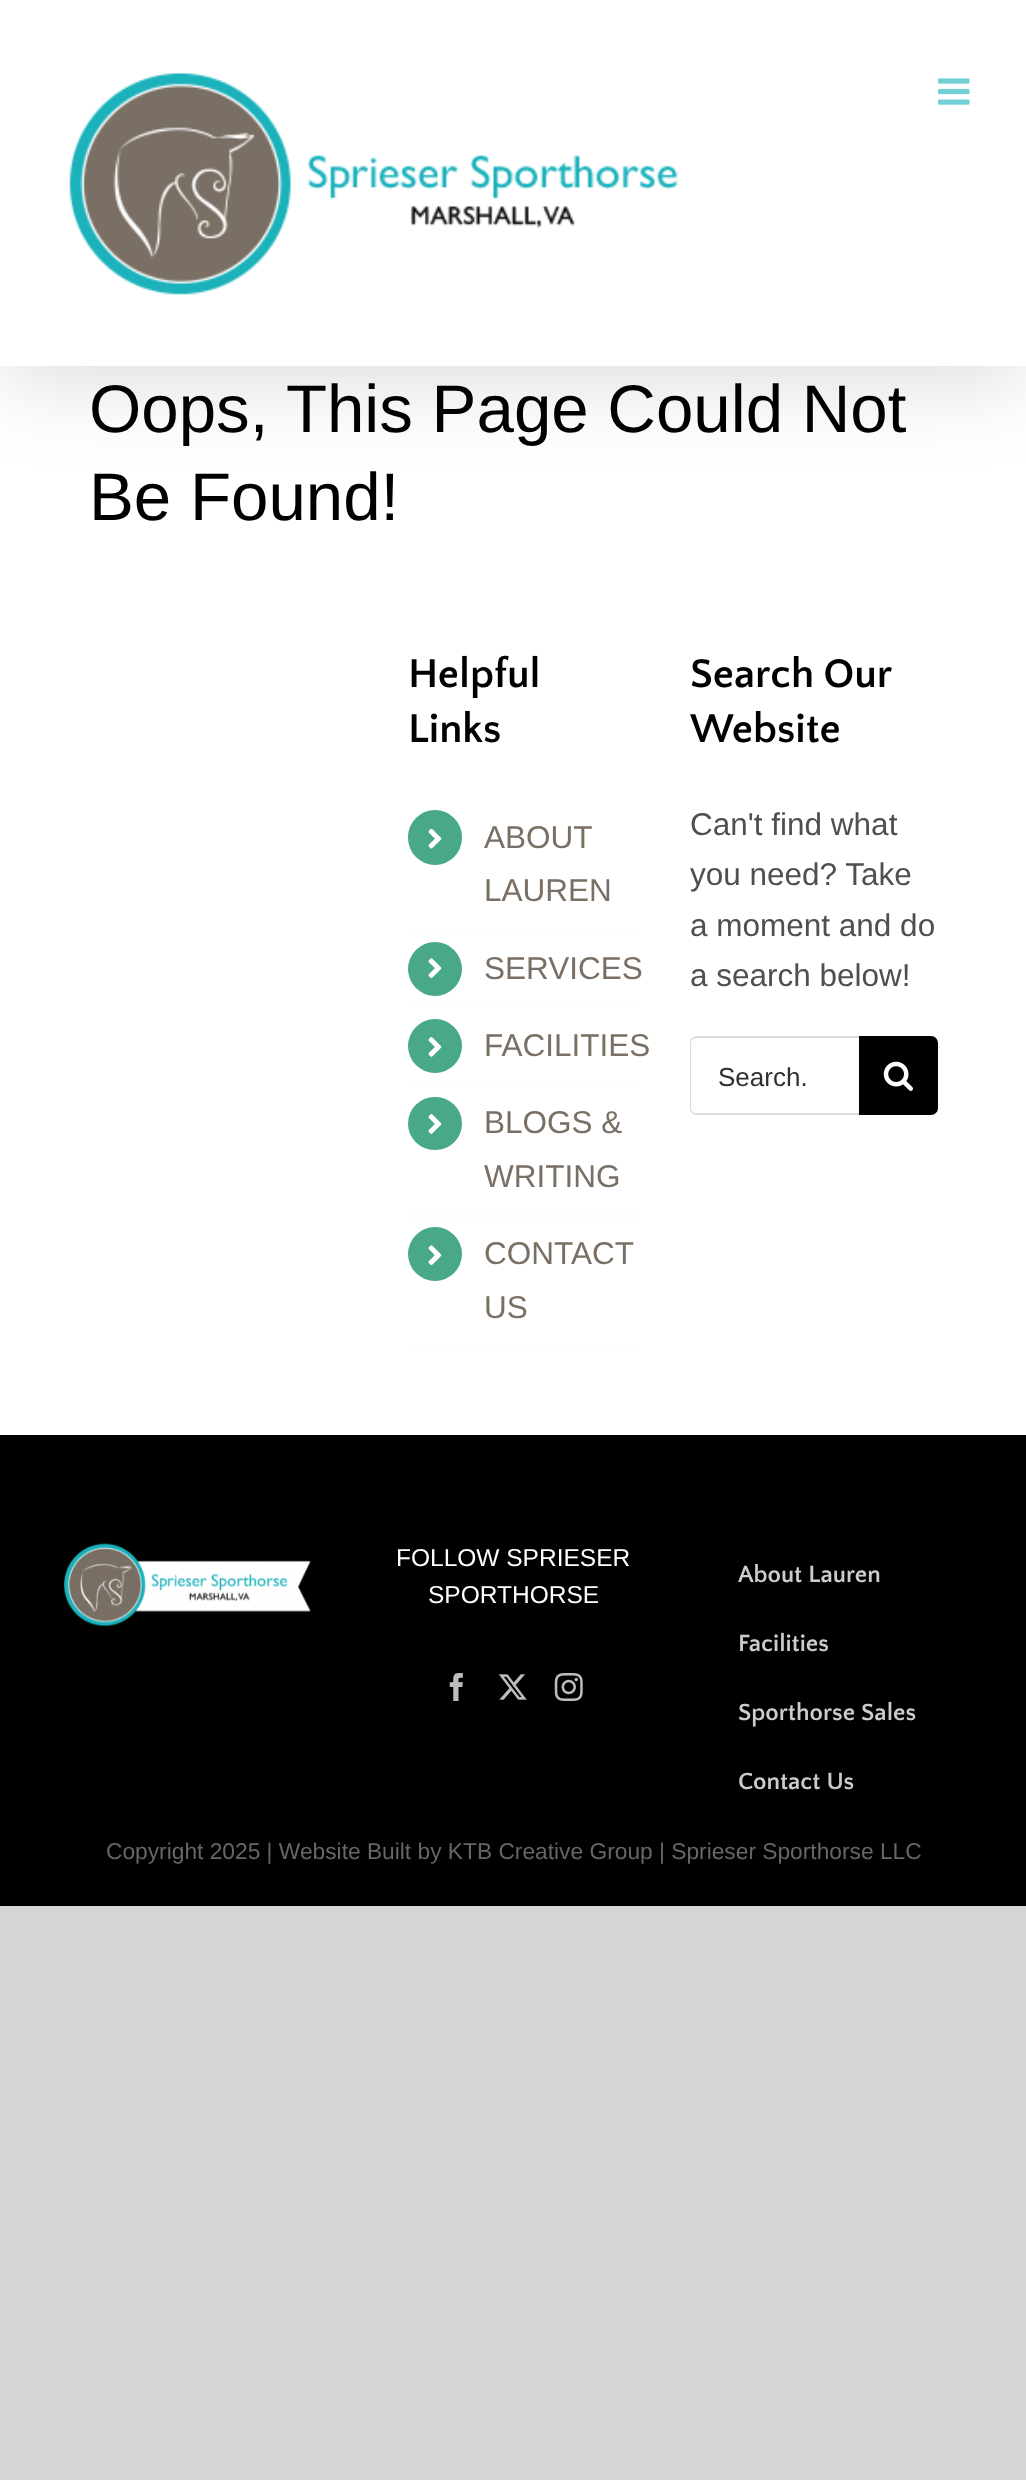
async function draw(canvas) {
  canvas.width = 1026
  canvas.height = 2480
  const ctx = canvas.getContext('2d')
  ctx.miterLimit = 4
  ctx.fontKerning = 'normal'
  async function loadImage(src) {
    const img = new Image()
    img.src = src
    await img.decode()
    return img
  }

  ctx.fillStyle = '#d7d6d6'
  ctx.fillRect(0, 0, 1026, 2480)
  ctx.fillStyle = '#fff'
  ctx.fillRect(0, 366, 1026, 1069)
  ctx.fillStyle = '#00000024'
  ctx.filter = 'blur(44px)'
  ctx.beginPath()
  ctx.rect(4, 21, 1020, 359)
  ctx.fill()
  ctx.filter = 'none'
  ctx.fillStyle = '#fff'
  ctx.fillRect(0, 0, 1026, 366)
  ctx.drawImage(await loadImage('image0.png'), 69, 73, 609, 222)
  ctx.drawImage(await loadImage('image1.png'), 938, 78, 32, 27)
  ctx.font = '67.25px Liberation Sans'
  ctx.fillStyle = '#000'
  ctx.fillText('Oops, This Page Could Not', 89, 432)
  ctx.fillText('Be Found!', 89, 520)
  ctx.font = 'bold 42px Quattrocento Sans'
  ctx.fillText('Helpful', 408, 687)
  ctx.fillText('Links', 408, 742)
  ctx.fillStyle = '#fffcfc'
  ctx.fillRect(408, 929, 229, 2)
  ctx.fillStyle = '#49a987'
  ctx.beginPath()
  ctx.roundRect(408, 810, 54, 55, 27)
  ctx.fill()
  ctx.drawImage(await loadImage('image2.png'), 428, 828, 14, 21)
  ctx.font = '31.5px Liberation Sans'
  ctx.fillStyle = '#7a6f64'
  ctx.fillText('ABOUT', 484, 848)
  ctx.fillText('LAUREN', 484, 901)
  ctx.fillStyle = '#fffcfc'
  ctx.fillRect(408, 1006, 229, 2)
  ctx.fillStyle = '#49a987'
  ctx.beginPath()
  ctx.arc(435, 969, 27, 0, 2 * Math.PI)
  ctx.fill()
  ctx.drawImage(await loadImage('image3.png'), 428, 958, 14, 20)
  ctx.fillStyle = '#7a6f64'
  ctx.fillText('SERVICES', 484, 979)
  ctx.fillStyle = '#fffcfc'
  ctx.fillRect(408, 1083, 229, 2)
  ctx.fillStyle = '#49a987'
  ctx.beginPath()
  ctx.arc(435, 1046, 27, 0, 2 * Math.PI)
  ctx.fill()
  ctx.drawImage(await loadImage('image4.png'), 428, 1037, 14, 20)
  ctx.fillStyle = '#7a6f64'
  ctx.fillText('FACILITIES', 484, 1056)
  ctx.fillStyle = '#fffcfc'
  ctx.fillRect(408, 1215, 229, 2)
  ctx.fillStyle = '#49a987'
  ctx.beginPath()
  ctx.roundRect(408, 1097, 54, 53, 26.5)
  ctx.fill()
  ctx.drawImage(await loadImage('image4.png'), 428, 1114, 14, 20)
  ctx.fillStyle = '#7a6f64'
  ctx.fillText('BLOGS &', 484, 1133)
  ctx.fillText('WRITING', 484, 1187)
  ctx.fillStyle = '#fffcfc'
  ctx.fillRect(408, 1346, 229, 2)
  ctx.fillStyle = '#49a987'
  ctx.beginPath()
  ctx.arc(435, 1254, 27, 0, 2 * Math.PI)
  ctx.fill()
  ctx.drawImage(await loadImage('image3.png'), 428, 1245, 14, 20)
  ctx.fillStyle = '#7a6f64'
  ctx.fillText('CONTACT', 484, 1264)
  ctx.fillText('US', 484, 1318)
  ctx.wordSpacing = '-1px'
  ctx.font = 'bold 42px Quattrocento Sans'
  ctx.fillStyle = '#000'
  ctx.fillText('Search Our', 690, 687)
  ctx.wordSpacing = '0px'
  ctx.fillText('Website', 690, 742)
  ctx.font = '31.5px Liberation Sans'
  ctx.fillStyle = '#4f4f4f'
  ctx.fillText('Can\'t find what', 690, 835)
  ctx.fillText('you need? Take', 690, 885)
  ctx.fillText('a moment and do', 690, 936)
  ctx.fillText('a search below!', 690, 986)
  ctx.fillStyle = '#dbdbdb'
  ctx.beginPath()
  ctx.moveTo(696, 1038)
  ctx.lineTo(859, 1038)
  ctx.lineTo(859, 1036)
  ctx.lineTo(697, 1036)
  ctx.bezierCurveTo(693, 1036, 690, 1039, 690, 1043)
  ctx.lineTo(690, 1108)
  ctx.bezierCurveTo(690, 1112, 693, 1115, 697, 1115)
  ctx.lineTo(859, 1115)
  ctx.lineTo(859, 1113)
  ctx.lineTo(696, 1113)
  ctx.bezierCurveTo(694, 1113, 691, 1111, 691, 1108)
  ctx.lineTo(691, 1043)
  ctx.bezierCurveTo(691, 1040, 694, 1038, 696, 1038)
  ctx.closePath()
  ctx.fill()
  ctx.font = '26px Liberation Sans'
  ctx.fillStyle = '#332f2f'
  ctx.fillText('Search.', 718, 1086)
  ctx.fillStyle = '#000'
  ctx.beginPath()
  ctx.roundRect(859, 1036, 79, 79, [0, 7, 7, 0])
  ctx.fill()
  ctx.drawImage(await loadImage('image5.png'), 883, 1061, 30, 30)
  ctx.fillRect(0, 1435, 1026, 471)
  ctx.drawImage(await loadImage('image6.png'), 64, 1543, 247, 83)
  ctx.font = '24.5px Liberation Sans'
  ctx.fillStyle = '#fff'
  ctx.fillText('FOLLOW SPRIESER', 396, 1566)
  ctx.fillText('SPORTHORSE', 428, 1603)
  ctx.drawImage(await loadImage('image7.png'), 449, 1673, 14, 28)
  ctx.drawImage(await loadImage('image8.png'), 498, 1674, 29, 26)
  ctx.drawImage(await loadImage('image9.png'), 554, 1673, 29, 28)
  ctx.font = 'bold 24.5px Quattrocento Sans'
  ctx.fillStyle = '#ccc'
  ctx.fillText('About Lauren', 738, 1582)
  ctx.fillText('Facilities', 738, 1651)
  ctx.fillText('Sporthorse Sales', 738, 1720)
  ctx.fillText('Contact Us', 738, 1789)
  ctx.font = '22.75px Liberation Sans'
  ctx.fillStyle = '#666'
  ctx.fillText('Copyright 2025 | Website Built by KTB Creative Group | Sprieser Sporthorse LLC', 106, 1859)
}

draw(document.querySelector('canvas'))
